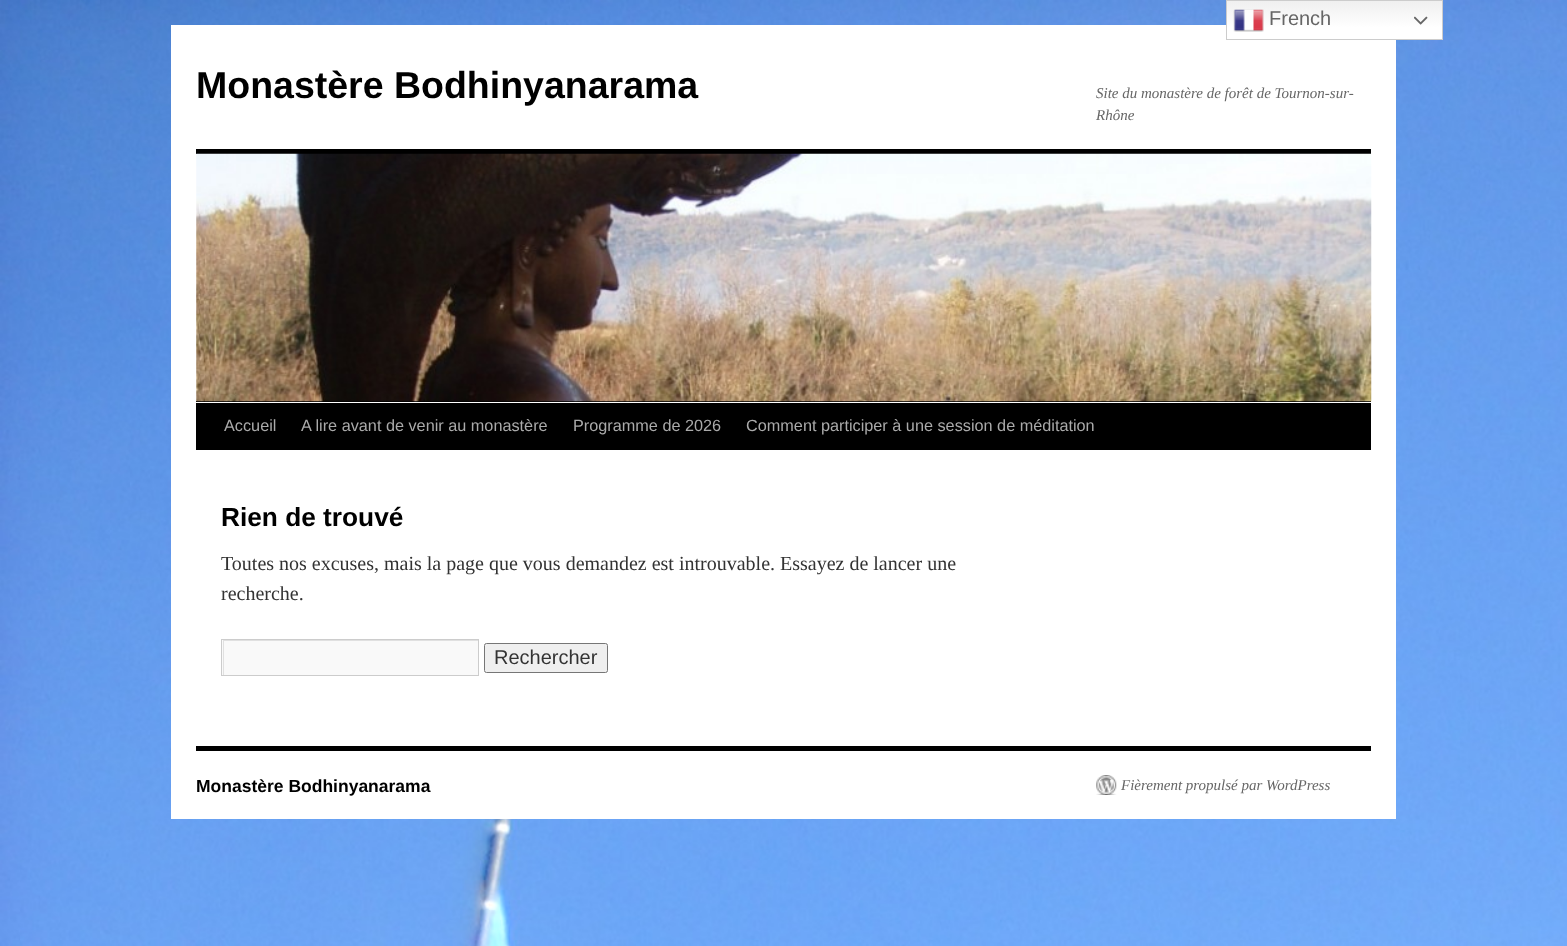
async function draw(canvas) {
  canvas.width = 1567
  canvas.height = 946
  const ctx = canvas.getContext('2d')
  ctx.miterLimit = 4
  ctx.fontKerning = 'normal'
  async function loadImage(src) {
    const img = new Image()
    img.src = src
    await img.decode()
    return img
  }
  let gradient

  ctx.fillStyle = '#fff'
  ctx.fillRect(0, 0, 1567, 946)
  ctx.drawImage(await loadImage('image0.png'), 0, 0, 1567, 946)
  ctx.fillRect(171, 25, 1225, 794)
  gradient = ctx.createLinearGradient(1334, 0, 1334, 40)
  gradient.addColorStop(0, '#efefef')
  gradient.addColorStop(0.7, '#fff')
  ctx.fillStyle = gradient
  ctx.fillRect(1227, 1, 215, 38)
  ctx.strokeStyle = '#ccc'
  ctx.strokeRect(1226.5, 0.5, 216, 39)
  ctx.drawImage(await loadImage('image1.png'), 1233, 9, 31, 23)
  ctx.font = '20px Liberation Sans'
  ctx.fillStyle = '#666'
  ctx.fillText('French', 1269, 25)
  ctx.drawImage(await loadImage('image2.png'), 1414, 16, 14, 9)
  ctx.font = 'bold 37.5px Liberation Sans'
  ctx.fillStyle = '#000'
  ctx.fillText('Monastère Bodhinyanarama', 196, 98)
  ctx.font = 'italic 15px Liberation Serif'
  ctx.fillStyle = '#666'
  ctx.fillText('Site du monastère de forêt de Tournon-sur-', 1096, 98)
  ctx.fillText('Rhône', 1096, 120)
  ctx.fillStyle = '#000'
  ctx.fillRect(196, 149, 1175, 5)
  ctx.fillRect(196, 401, 1175, 1)
  ctx.drawImage(await loadImage('image3.png'), 196, 153, 1176, 249)
  ctx.fillRect(196, 403, 1175, 47)
  ctx.font = '16.25px Liberation Sans'
  ctx.fillStyle = '#aaa'
  ctx.fillText('Accueil', 224, 431)
  ctx.fillText('A lire avant de venir au monastère', 301, 431)
  ctx.fillText('Programme de 2026', 573, 431)
  ctx.fillText('Comment participer à une session de méditation', 746, 431)
  ctx.font = 'bold 26.25px Liberation Sans'
  ctx.fillStyle = '#000'
  ctx.fillText('Rien de trouvé', 221, 526)
  ctx.font = '20px Liberation Serif'
  ctx.fillStyle = '#333'
  ctx.fillText('Toutes nos excuses, mais la page que vous demandez est introuvable. Essayez de lancer une', 221, 570)
  ctx.fillText('recherche.', 221, 600)
  ctx.fillStyle = '#f9f9f9'
  ctx.fillRect(222, 640, 256, 35)
  ctx.save()
  ctx.beginPath()
  ctx.rect(223, 640, 255, 35)
  ctx.clip()
  ctx.fillStyle = '#e0e0e0'
  ctx.beginPath()
  ctx.moveTo(99, 516)
  ctx.lineTo(601, 516)
  ctx.lineTo(601, 799)
  ctx.lineTo(99, 799)
  ctx.closePath()
  ctx.moveTo(224, 641)
  ctx.lineTo(479, 641)
  ctx.lineTo(479, 676)
  ctx.lineTo(224, 676)
  ctx.closePath()
  ctx.fill('evenodd')
  ctx.restore()
  ctx.strokeRect(221.5, 639.5, 257, 36)
  ctx.fillStyle = '#efefef'
  ctx.beginPath()
  ctx.roundRect(484.5, 643.5, 123, 29, 2)
  ctx.fill()
  ctx.strokeStyle = '#767676'
  ctx.stroke()
  ctx.font = '20px Liberation Sans'
  ctx.fillStyle = '#333'
  ctx.fillText('Rechercher', 494, 664)
  ctx.fillStyle = '#000'
  ctx.fillRect(196, 746, 1175, 5)
  ctx.font = 'bold 17.5px Liberation Sans'
  ctx.fillText('Monastère Bodhinyanarama', 196, 792)
  ctx.drawImage(await loadImage('image4.png'), 1096, 775, 21, 20)
  ctx.font = 'italic 15px Liberation Serif'
  ctx.fillStyle = '#666'
  ctx.fillText('Fièrement propulsé par WordPress', 1121, 790)
}

draw(document.querySelector('canvas'))
